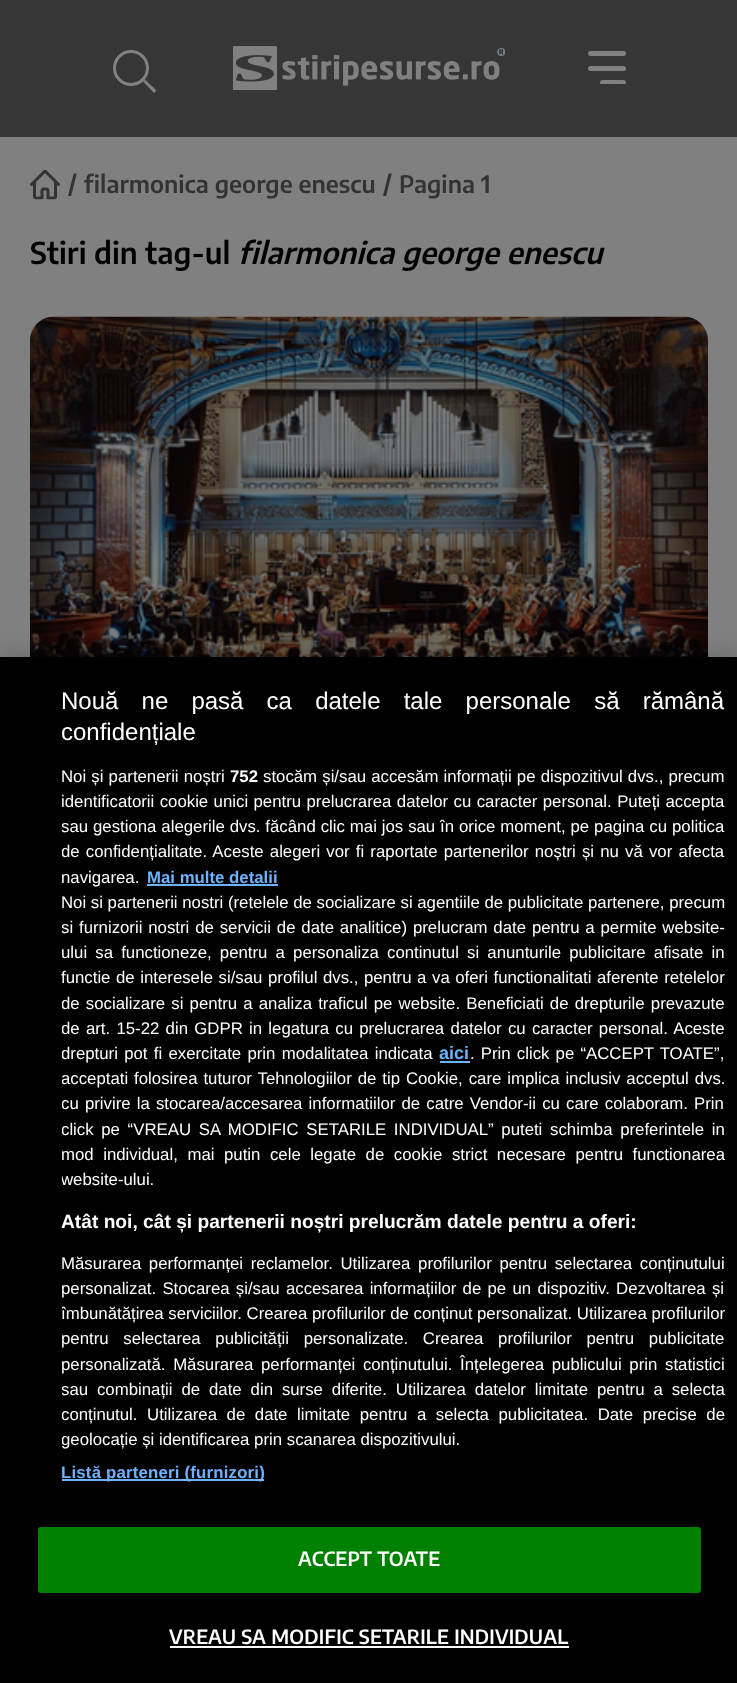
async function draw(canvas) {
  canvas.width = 737
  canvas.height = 1683
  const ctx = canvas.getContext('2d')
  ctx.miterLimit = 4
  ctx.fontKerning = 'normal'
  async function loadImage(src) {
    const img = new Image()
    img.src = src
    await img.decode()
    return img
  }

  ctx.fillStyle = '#808080'
  ctx.fillRect(0, 0, 737, 1683)
  ctx.fillStyle = '#363636'
  ctx.fillRect(0, 0, 737, 137)
  ctx.beginPath()
  ctx.arc(131, 68, 16.5, 0, 2 * Math.PI)
  ctx.strokeStyle = '#808080'
  ctx.lineWidth = 3
  ctx.stroke()
  ctx.fillStyle = '#808080'
  ctx.beginPath()
  ctx.moveTo(143, 81.5)
  ctx.lineTo(145, 79.5)
  ctx.lineTo(156.5, 90.5)
  ctx.lineTo(154, 93)
  ctx.closePath()
  ctx.fill()
  ctx.drawImage(await loadImage('image0.png'), 233, 46, 272, 44)
  ctx.beginPath()
  ctx.roundRect(588, 51, 38, 5, 2.5)
  ctx.fill()
  ctx.beginPath()
  ctx.roundRect(588, 66, 38, 5, 2.5)
  ctx.fill()
  ctx.save()
  ctx.beginPath()
  ctx.rect(588, 51, 38, 33)
  ctx.clip()
  ctx.beginPath()
  ctx.roundRect(600, 80, 26, 5, 2.5)
  ctx.fill()
  ctx.restore()
  ctx.drawImage(await loadImage('image1.png'), 30, 170, 30, 30)
  ctx.font = '600 24px Encode Sans Condensed'
  ctx.fillStyle = '#333'
  ctx.fillText('/', 68, 193)
  ctx.fillText('filarmonica george enescu', 84, 193)
  ctx.fillText('/', 383, 193)
  ctx.fillText('Pagina 1', 399, 193)
  ctx.font = '600 30px Encode Sans Condensed'
  ctx.fillStyle = '#010101'
  ctx.fillText('Stiri din tag-ul', 30, 264)
  ctx.font = 'italic 600 30px Encode Sans Condensed'
  ctx.fillText('filarmonica george enescu', 238, 264)
  ctx.drawImage(await loadImage('image2.png'), 30, 316, 678, 341)
  ctx.fillStyle = '#00000033'
  ctx.filter = 'blur(13.5px)'
  ctx.beginPath()
  ctx.rect(0, 657, 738, 1026)
  ctx.fill()
  ctx.filter = 'none'
  ctx.fillStyle = '#000'
  ctx.fillRect(0, 657, 737, 1026)
  ctx.wordSpacing = '16.5px'
  ctx.font = '24px Liberation Sans'
  ctx.fillStyle = '#fff'
  ctx.fillText('Nouă ne pasă ca datele tale personale să rămână', 61, 709)
  ctx.wordSpacing = '0px'
  ctx.fillText('confidențiale', 61, 740)
  ctx.wordSpacing = '0.5px'
  ctx.font = '16.8px Liberation Sans'
  ctx.fillText('Noi și partenerii noștri', 61, 782)
  ctx.wordSpacing = '0px'
  ctx.font = 'bold 16.8px Liberation Sans'
  ctx.fillText('752', 230, 782)
  ctx.wordSpacing = '0.5px'
  ctx.font = '16.8px Liberation Sans'
  ctx.fillText('stocăm și/sau accesăm informații pe dispozitivul dvs., precum', 263, 782)
  ctx.wordSpacing = '0.75px'
  ctx.fillText('identificatorii cookie unici pentru prelucrarea datelor cu caracter personal. Puteți accepta', 61, 807)
  ctx.save()
  ctx.beginPath()
  ctx.rect(62, 687, 663, 813)
  ctx.clip()
  ctx.wordSpacing = '0.25px'
  ctx.fillText('sau gestiona alegerile dvs. făcând clic mai jos sau în orice moment, pe pagina cu politica', 61, 832)
  ctx.wordSpacing = '1.5px'
  ctx.fillText('de confidențialitate. Aceste alegeri vor fi raportate partenerilor noștri și nu vă vor afecta', 61, 857)
  ctx.restore()
  ctx.wordSpacing = '0px'
  ctx.fillText('navigarea.', 61, 883)
  ctx.font = 'bold 16.8px Liberation Sans'
  ctx.fillStyle = '#6eb3ff'
  ctx.fillText('Mai multe detalii', 147, 883)
  ctx.fillRect(147, 884, 131, 2)
  ctx.font = '16.8px Liberation Sans'
  ctx.fillStyle = '#fff'
  ctx.fillText('Noi si partenerii nostri (retelele de socializare si agentiile de publicitate partenere, precum', 61, 908)
  ctx.save()
  ctx.beginPath()
  ctx.rect(62, 687, 663, 813)
  ctx.clip()
  ctx.wordSpacing = '1.2px'
  ctx.fillText('si furnizorii nostri de servicii de date analitice) prelucram date pentru a permite website-', 61, 933)
  ctx.restore()
  ctx.wordSpacing = '3.5px'
  ctx.fillText('ului sa functioneze, pentru a personaliza continutul si anunturile publicitare afisate in', 61, 958)
  ctx.wordSpacing = '0.9px'
  ctx.fillText('functie de interesele si/sau profilul dvs., pentru a va oferi functionalitati aferente retelelor', 61, 983)
  ctx.save()
  ctx.beginPath()
  ctx.rect(62, 687, 663, 813)
  ctx.clip()
  ctx.wordSpacing = '1.5px'
  ctx.fillText('de socializare si pentru a analiza traficul pe website. Beneficiati de drepturile prevazute', 61, 1009)
  ctx.wordSpacing = '1.6px'
  ctx.fillText('de art. 15-22 din GDPR in legatura cu prelucrarea datelor cu caracter personal. Aceste', 61, 1034)
  ctx.fillText('drepturi pot fi exercitate prin modalitatea indicata', 61, 1059)
  ctx.restore()
  ctx.wordSpacing = '0px'
  ctx.font = 'bold 18px Liberation Sans'
  ctx.fillStyle = '#6eb3ff'
  ctx.fillText('aici', 439, 1059)
  ctx.fillRect(440, 1061, 30, 2)
  ctx.wordSpacing = '1.5px'
  ctx.font = '16.8px Liberation Sans'
  ctx.fillStyle = '#fff'
  ctx.fillText('. Prin click pe “ACCEPT TOATE”,', 470, 1059)
  ctx.save()
  ctx.beginPath()
  ctx.rect(62, 687, 663, 813)
  ctx.clip()
  ctx.wordSpacing = '1.25px'
  ctx.fillText('acceptati folosirea tuturor Tehnologiilor de tip Cookie, care implica inclusiv acceptul dvs.', 61, 1084)
  ctx.wordSpacing = '1.5px'
  ctx.fillText('cu privire la stocarea/accesarea informatiilor de catre Vendor-ii cu care colaboram. Prin', 61, 1109)
  ctx.wordSpacing = '3px'
  ctx.fillText('click pe “VREAU SA MODIFIC SETARILE INDIVIDUAL” puteti schimba preferintele in', 61, 1135)
  ctx.restore()
  ctx.wordSpacing = '4.9px'
  ctx.fillText('mod individual, mai putin cele legate de cookie strict necesare pentru functionarea', 61, 1160)
  ctx.save()
  ctx.beginPath()
  ctx.rect(62, 687, 663, 813)
  ctx.clip()
  ctx.wordSpacing = '0px'
  ctx.fillText('website-ului.', 61, 1185)
  ctx.restore()
  ctx.wordSpacing = '0px'
  ctx.font = 'bold 19.2px Liberation Sans'
  ctx.fillText('Atât noi, cât și partenerii noștri prelucrăm datele pentru a oferi:', 61, 1228)
  ctx.wordSpacing = '3px'
  ctx.font = '16.8px Liberation Sans'
  ctx.fillText('Măsurarea performanței reclamelor. Utilizarea profilurilor pentru selectarea conținutului', 61, 1269)
  ctx.wordSpacing = '1.6px'
  ctx.fillText('personalizat. Stocarea și/sau accesarea informațiilor de pe un dispozitiv. Dezvoltarea și', 61, 1294)
  ctx.save()
  ctx.beginPath()
  ctx.rect(62, 687, 663, 813)
  ctx.clip()
  ctx.wordSpacing = '0px'
  ctx.fillText('îmbunătățirea serviciilor. Crearea profilurilor de conținut personalizat. Utilizarea profilurilor', 61, 1319)
  ctx.restore()
  ctx.wordSpacing = '10px'
  ctx.fillText('pentru selectarea publicității personalizate. Crearea profilurilor pentru publicitate', 61, 1344)
  ctx.wordSpacing = '3px'
  ctx.fillText('personalizată. Măsurarea performanței conținutului. Înțelegerea publicului prin statistici', 61, 1370)
  ctx.save()
  ctx.beginPath()
  ctx.rect(62, 687, 663, 813)
  ctx.clip()
  ctx.wordSpacing = '4.25px'
  ctx.fillText('sau combinații de date din surse diferite. Utilizarea datelor limitate pentru a selecta', 61, 1395)
  ctx.wordSpacing = '4.9px'
  ctx.fillText('conținutul. Utilizarea de date limitate pentru a selecta publicitatea. Date precise de', 61, 1420)
  ctx.wordSpacing = '0px'
  ctx.fillText('geolocație și identificarea prin scanarea dispozitivului.', 61, 1445)
  ctx.restore()
  ctx.fillStyle = '#6eb3ff'
  ctx.fillRect(62, 1479, 202, 2)
  ctx.letterSpacing = '0.2px'
  ctx.wordSpacing = '0px'
  ctx.font = 'bold 16.8px Liberation Sans'
  ctx.fillText('Listă parteneri (furnizori)', 61, 1478)
  ctx.fillStyle = '#008000'
  ctx.beginPath()
  ctx.roundRect(39, 1528, 661, 64, 2)
  ctx.fill()
  ctx.strokeStyle = '#008000'
  ctx.lineWidth = 2
  ctx.stroke()
  ctx.font = '600 19.5px Encode Sans Condensed'
  ctx.fillStyle = '#fff'
  ctx.fillText('ACCEPT TOATE', 298, 1566)
  ctx.fillText('VREAU SA MODIFIC SETARILE INDIVIDUAL', 169, 1644)
  ctx.fillRect(170, 1646, 399, 2)
}

draw(document.querySelector('canvas'))
